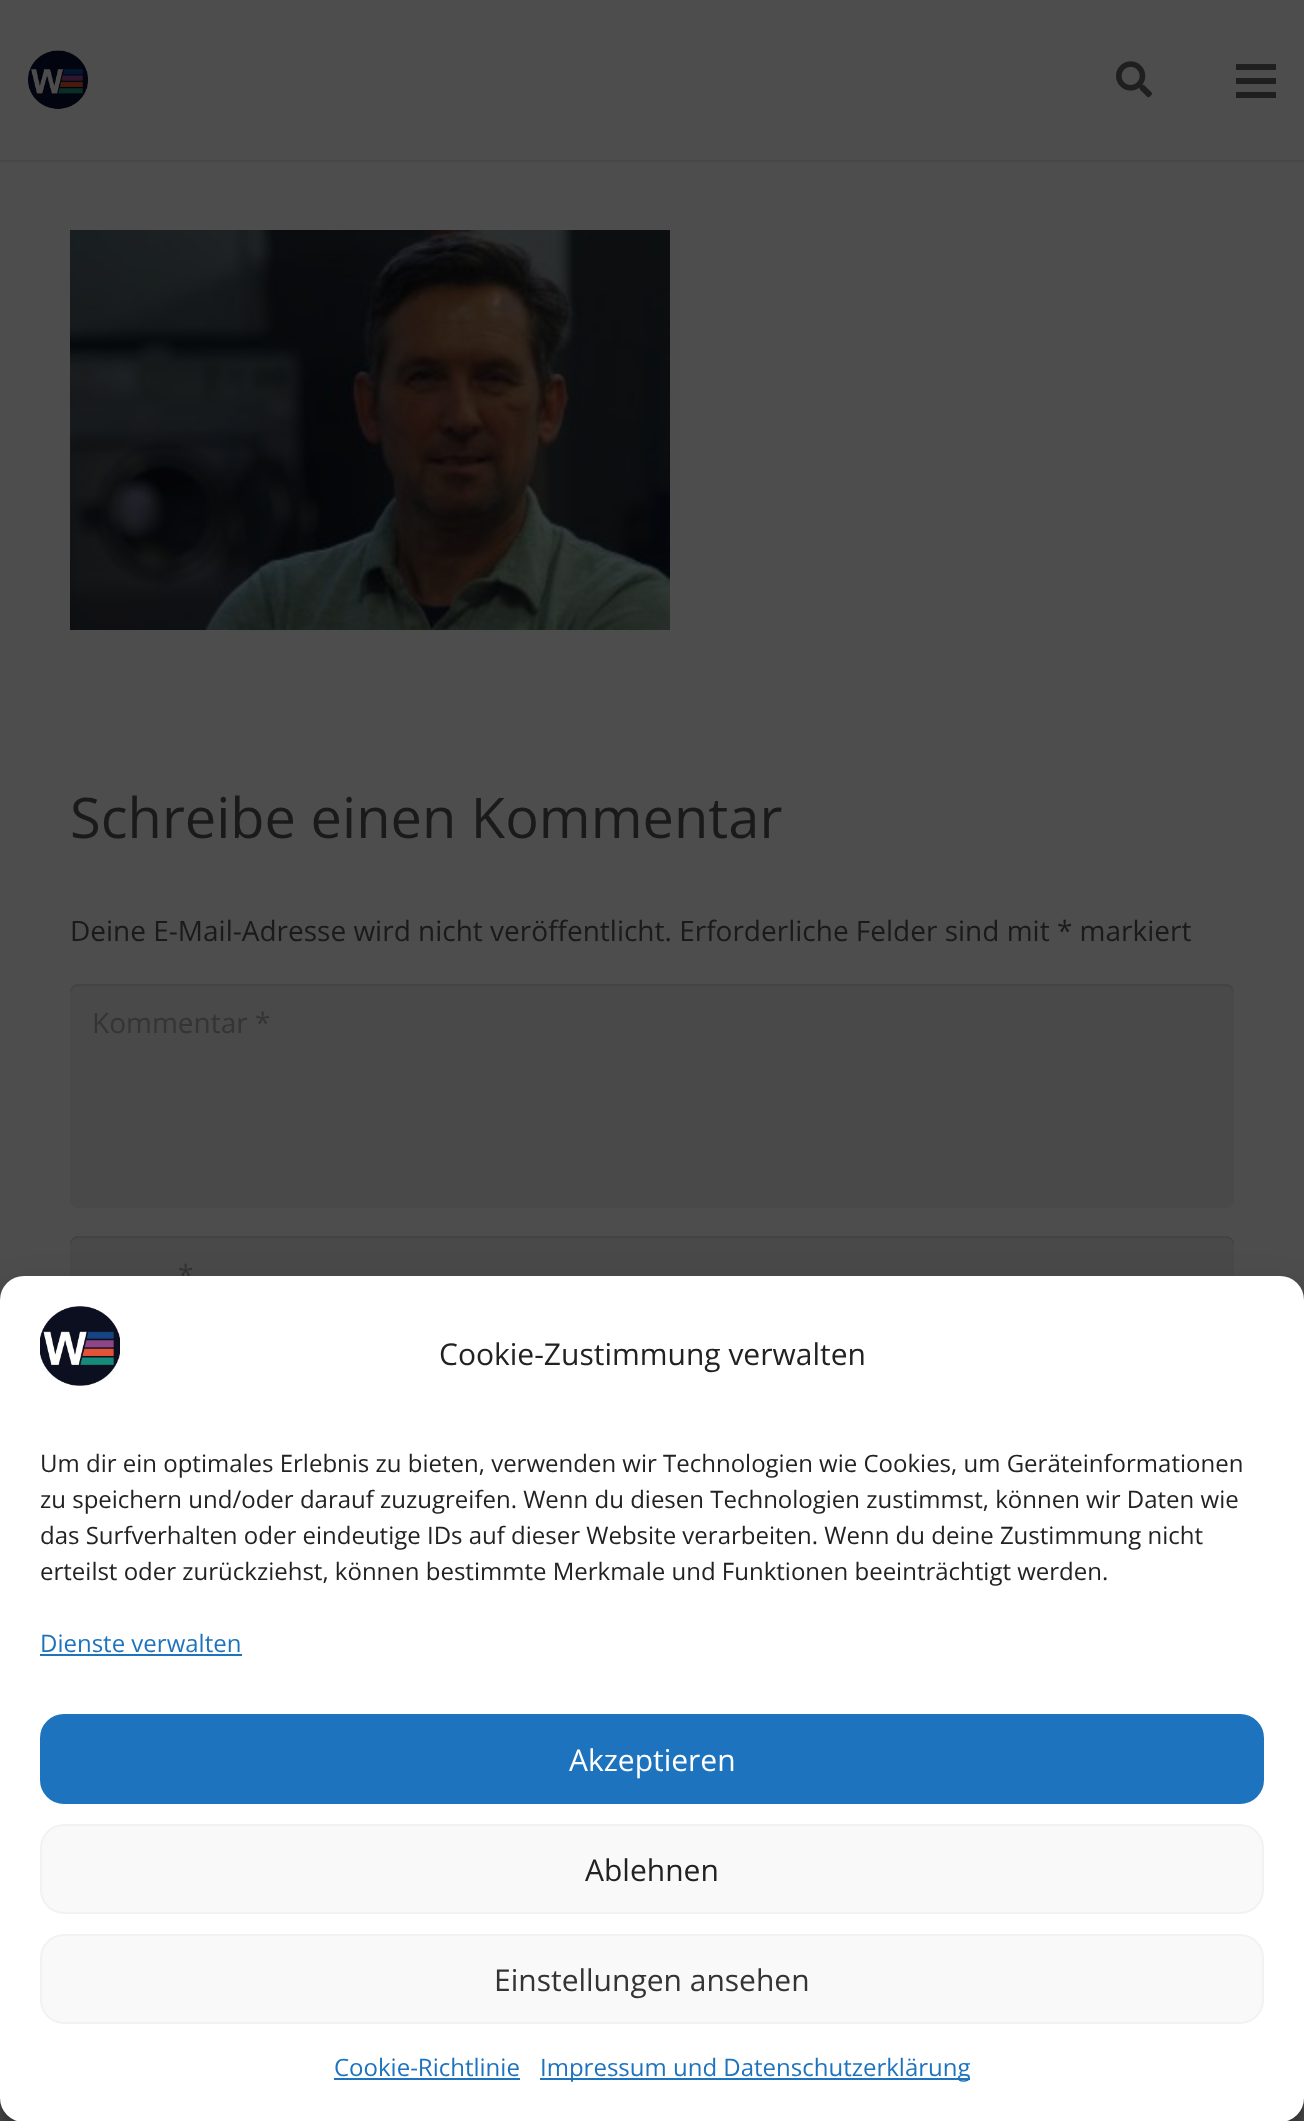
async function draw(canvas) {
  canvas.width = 1304
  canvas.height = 2121
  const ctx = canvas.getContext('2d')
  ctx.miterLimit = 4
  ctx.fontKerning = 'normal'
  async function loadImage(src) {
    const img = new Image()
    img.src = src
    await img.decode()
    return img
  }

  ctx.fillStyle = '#4d4d4d'
  ctx.fillRect(0, 0, 1304, 2121)
  ctx.fillStyle = '#474747'
  ctx.fillRect(0, 160, 1304, 2)
  ctx.drawImage(await loadImage('image0.png'), 28, 50, 60, 59)
  ctx.drawImage(await loadImage('image1.png'), 1116, 61, 36, 37)
  ctx.fillStyle = '#1f1f1f'
  ctx.fillRect(1236, 78, 40, 6)
  ctx.fillRect(1236, 64, 40, 6)
  ctx.fillRect(1236, 92, 40, 6)
  ctx.drawImage(await loadImage('image2.png'), 70, 230, 600, 400)
  ctx.font = '56px Open Sans'
  ctx.fillStyle = '#1a1a1a'
  ctx.fillText('Schreibe einen Kommentar', 70, 838)
  ctx.font = '28px Open Sans'
  ctx.fillText('Deine E-Mail-Adresse wird nicht veröffentlicht. Erforderliche Felder sind mit * markiert', 70, 941)
  ctx.fillStyle = '#494949'
  ctx.beginPath()
  ctx.roundRect(70, 984, 1164, 224, 8)
  ctx.fill()
  ctx.fillStyle = '#434343'
  ctx.beginPath()
  ctx.moveTo(78, 986)
  ctx.lineTo(1226, 986)
  ctx.bezierCurveTo(1230, 986, 1234, 990, 1234, 994)
  ctx.lineTo(1234, 992)
  ctx.bezierCurveTo(1234, 988, 1230, 984, 1226, 984)
  ctx.lineTo(78, 984)
  ctx.bezierCurveTo(74, 984, 70, 988, 70, 992)
  ctx.lineTo(70, 994)
  ctx.bezierCurveTo(70, 990, 74, 986, 78, 986)
  ctx.closePath()
  ctx.fill()
  ctx.fillStyle = '#343434'
  ctx.fillText('Kommentar *', 92, 1033)
  ctx.fillStyle = '#494949'
  ctx.beginPath()
  ctx.roundRect(70, 1236, 1164, 78, 8)
  ctx.fill()
  ctx.fillStyle = '#434343'
  ctx.beginPath()
  ctx.moveTo(78, 1238)
  ctx.lineTo(1226, 1238)
  ctx.bezierCurveTo(1230, 1238, 1234, 1242, 1234, 1246)
  ctx.lineTo(1234, 1244)
  ctx.bezierCurveTo(1234, 1240, 1230, 1236, 1226, 1236)
  ctx.lineTo(78, 1236)
  ctx.bezierCurveTo(74, 1236, 70, 1240, 70, 1244)
  ctx.lineTo(70, 1246)
  ctx.bezierCurveTo(70, 1242, 74, 1238, 78, 1238)
  ctx.closePath()
  ctx.fill()
  ctx.fillStyle = '#343434'
  ctx.fillText('*', 178, 1285)
  ctx.fillStyle = '#0000003b'
  ctx.filter = 'blur(6px)'
  ctx.beginPath()
  ctx.roundRect(0, 1288, 1304, 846, 24)
  ctx.fill()
  ctx.filter = 'none'
  ctx.fillStyle = '#00000030'
  ctx.filter = 'blur(20px)'
  ctx.beginPath()
  ctx.roundRect(0, 1296, 1304, 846, 24)
  ctx.fill()
  ctx.filter = 'none'
  ctx.fillStyle = '#fff'
  ctx.beginPath()
  ctx.roundRect(0, 1276, 1304, 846, 24)
  ctx.fill()
  ctx.drawImage(await loadImage('image3.png'), 40, 1306, 80, 80)
  ctx.font = '30px Open Sans'
  ctx.fillStyle = '#222'
  ctx.fillText('Cookie-Zustimmung verwalten', 439, 1365)
  ctx.font = '24px Open Sans'
  ctx.fillText('Um dir ein optimales Erlebnis zu bieten, verwenden wir Technologien wie Cookies, um Geräteinformationen', 40, 1472)
  ctx.fillText('zu speichern und/oder darauf zuzugreifen. Wenn du diesen Technologien zustimmst, können wir Daten wie', 40, 1508)
  ctx.fillText('das Surfverhalten oder eindeutige IDs auf dieser Website verarbeiten. Wenn du deine Zustimmung nicht', 40, 1544)
  ctx.fillText('erteilst oder zurückziehst, können bestimmte Merkmale und Funktionen beeinträchtigt werden.', 40, 1580)
  ctx.fillStyle = '#1e73be'
  ctx.fillText('Dienste verwalten', 40, 1652)
  ctx.fillRect(40, 1654, 202, 2)
  ctx.beginPath()
  ctx.roundRect(41, 1715, 1222, 88, 23)
  ctx.fill()
  ctx.strokeStyle = '#1e73be'
  ctx.lineWidth = 2
  ctx.stroke()
  ctx.font = '30px Open Sans'
  ctx.fillStyle = '#fff'
  ctx.fillText('Akzeptieren', 569, 1771)
  ctx.fillStyle = '#f9f9f9'
  ctx.beginPath()
  ctx.roundRect(41, 1825, 1222, 88, 23)
  ctx.fill()
  ctx.strokeStyle = '#f2f2f2'
  ctx.stroke()
  ctx.fillStyle = '#222'
  ctx.fillText('Ablehnen', 585, 1881)
  ctx.fillStyle = '#f9f9f9'
  ctx.beginPath()
  ctx.roundRect(41, 1935, 1222, 88, 23)
  ctx.fill()
  ctx.stroke()
  ctx.fillStyle = '#343434'
  ctx.fillText('Einstellungen ansehen', 494, 1991)
  ctx.font = '24px Open Sans'
  ctx.fillStyle = '#1e73be'
  ctx.fillText('Cookie-Richtlinie', 334, 2076)
  ctx.fillRect(334, 2078, 186, 2)
  ctx.fillRect(540, 2078, 430, 2)
  ctx.fillText('Impressum und Datenschutzerklärung', 540, 2076)
}

draw(document.querySelector('canvas'))
